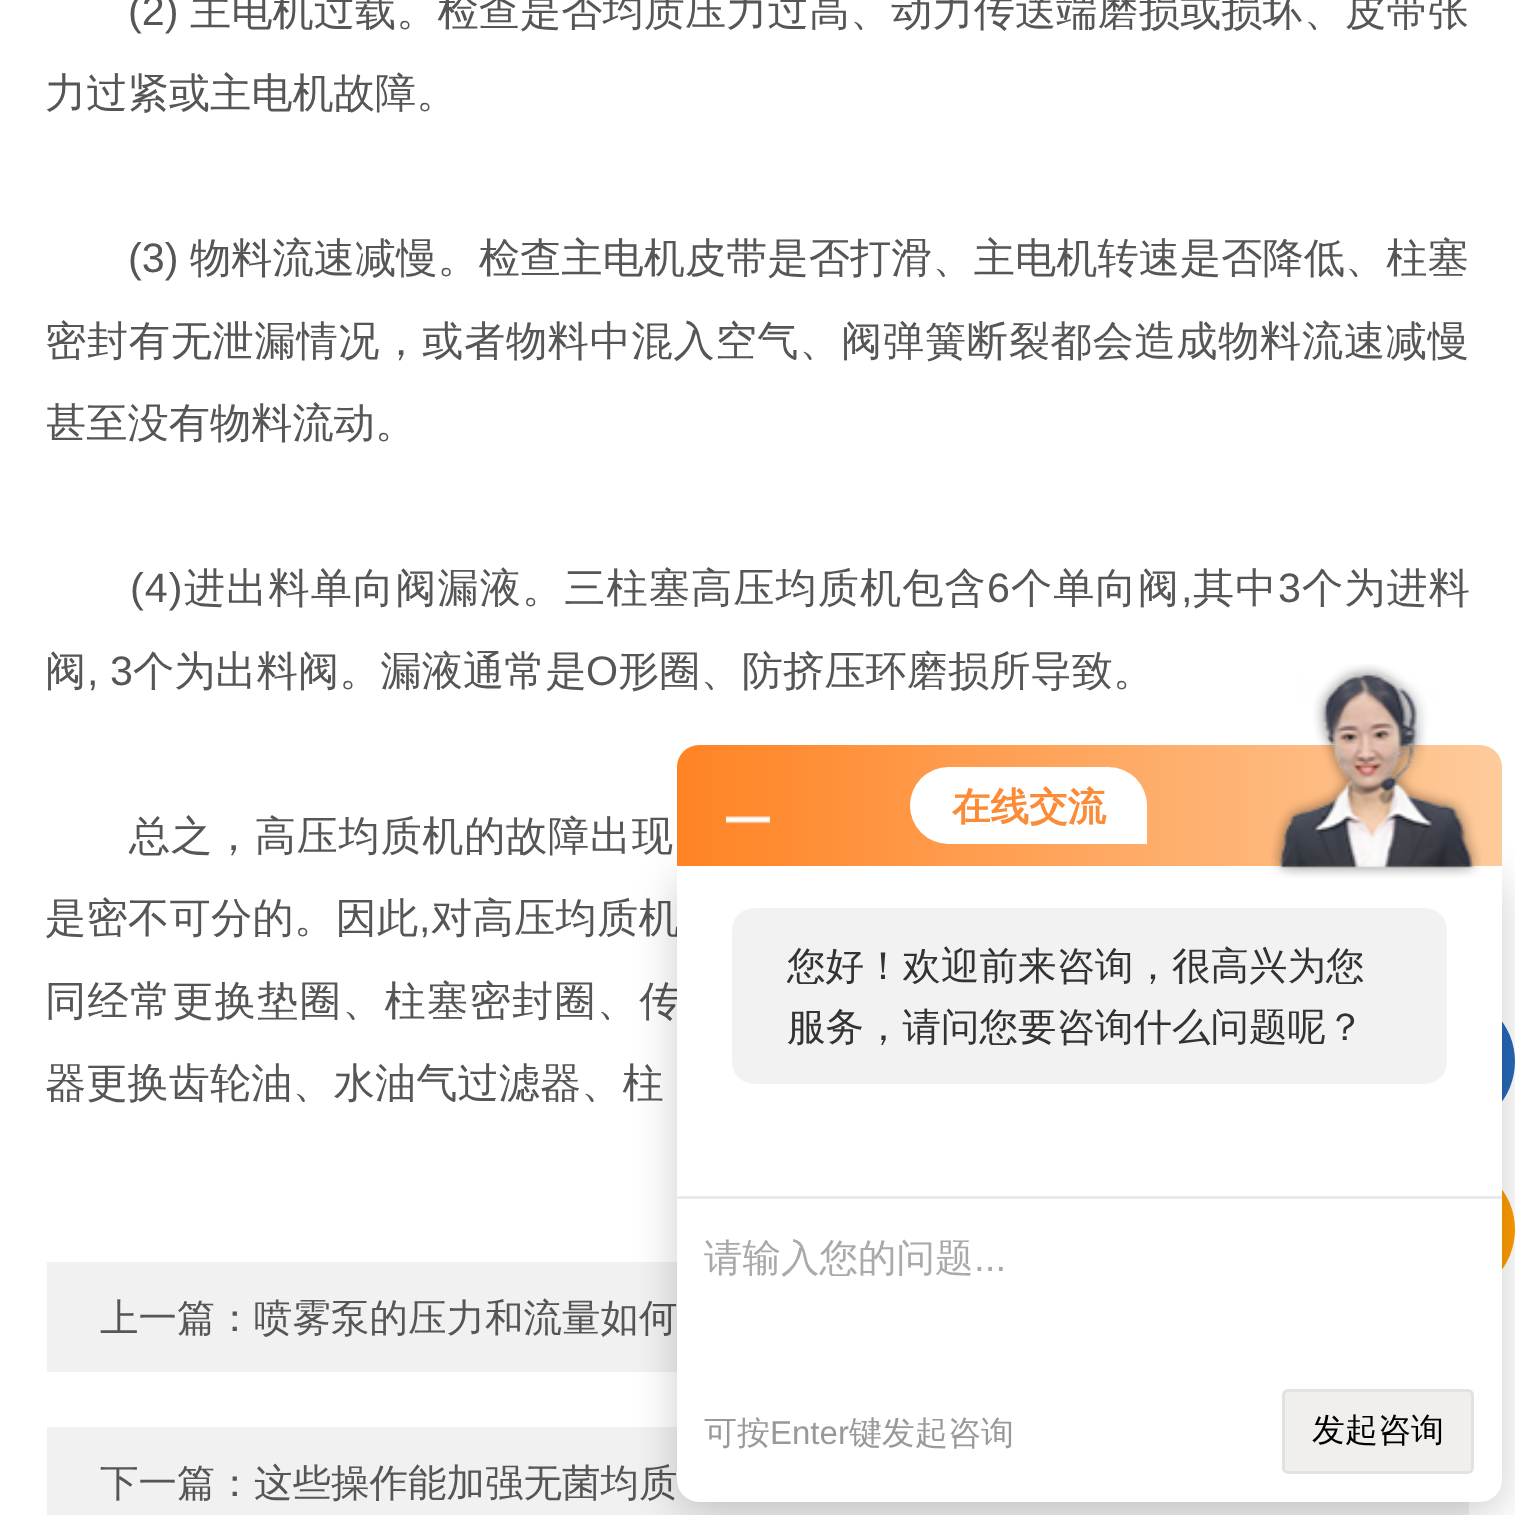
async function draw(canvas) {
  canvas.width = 1515
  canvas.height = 1515
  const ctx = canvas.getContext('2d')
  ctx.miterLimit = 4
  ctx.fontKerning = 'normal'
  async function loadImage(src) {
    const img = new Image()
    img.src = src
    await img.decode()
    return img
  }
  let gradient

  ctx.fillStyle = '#fff'
  ctx.fillRect(0, 0, 1515, 1515)
  ctx.font = '41.25px Liberation Sans'
  ctx.fillStyle = '#565656'
  ctx.fillText('(2)', 128, 25)
  ctx.font = '500 41.25px WenQuanYi Zen Hei'
  ctx.fillText('主电机过载。检查是否均质压力过高、动力传送端磨损或损坏、皮带张', 190, 25)
  ctx.fillText('力过紧或主电机故障。', 45, 107)
  ctx.font = '41.25px Liberation Sans'
  ctx.fillText('(3)', 128, 272)
  ctx.font = '500 41.25px WenQuanYi Zen Hei'
  ctx.fillText('物料流速减慢。检查主电机皮带是否打滑、主电机转速是否降低、柱塞', 190, 272)
  ctx.letterSpacing = '0.65px'
  ctx.fillText('密封有无泄漏情况，或者物料中混入空气、阀弹簧断裂都会造成物料流速减慢', 45, 355)
  ctx.save()
  ctx.beginPath()
  ctx.rect(47, 0, 1422, 1207)
  ctx.clip()
  ctx.letterSpacing = '0px'
  ctx.fillText('甚至没有物料流动。', 45, 437)
  ctx.restore()
  ctx.letterSpacing = '1px'
  ctx.font = '41.25px Liberation Sans'
  ctx.fillText('(4)', 130, 602)
  ctx.font = '500 41.25px WenQuanYi Zen Hei'
  ctx.fillText('进出料单向阀漏液。三柱塞高压均质机包含', 184, 602)
  ctx.font = '41.25px Liberation Sans'
  ctx.fillText('6', 987, 602)
  ctx.font = '500 41.25px WenQuanYi Zen Hei'
  ctx.fillText('个单向阀', 1011, 602)
  ctx.font = '41.25px Liberation Sans'
  ctx.fillText(',', 1181, 602)
  ctx.font = '500 41.25px WenQuanYi Zen Hei'
  ctx.fillText('其中', 1193, 602)
  ctx.font = '41.25px Liberation Sans'
  ctx.fillText('3', 1278, 602)
  ctx.font = '500 41.25px WenQuanYi Zen Hei'
  ctx.fillText('个为进料', 1302, 602)
  ctx.letterSpacing = '0px'
  ctx.fillText('阀', 45, 685)
  ctx.font = '41.25px Liberation Sans'
  ctx.fillText(', 3', 87, 685)
  ctx.font = '500 41.25px WenQuanYi Zen Hei'
  ctx.fillText('个为出料阀。漏液通常是', 133, 685)
  ctx.font = '41.25px Liberation Sans'
  ctx.fillText('O', 586, 685)
  ctx.font = '500 41.25px WenQuanYi Zen Hei'
  ctx.fillText('形圈、防挤压环磨损所导致。', 618, 685)
  ctx.letterSpacing = '0.65px'
  ctx.fillText('总之，高压均质机的故障出现', 129, 850)
  ctx.letterSpacing = '0.25px'
  ctx.fillText('是密不可分的。因此', 45, 932)
  ctx.font = '41.25px Liberation Sans'
  ctx.fillText(',', 419, 932)
  ctx.font = '500 41.25px WenQuanYi Zen Hei'
  ctx.fillText('对高压均质机', 431, 932)
  ctx.letterSpacing = '1.2px'
  ctx.fillText('同经常更换垫圈、柱塞密封圈、传', 45, 1015)
  ctx.letterSpacing = '0px'
  ctx.fillText('器更换齿轮油、水油气过滤器、柱', 45, 1097)
  ctx.fillStyle = '#f1f1f1'
  ctx.fillRect(47, 1262, 630, 110)
  ctx.font = '500 38.5px WenQuanYi Zen Hei'
  ctx.fillStyle = '#565656'
  ctx.fillText('上一篇：喷雾泵的压力和流量如何', 100, 1331)
  ctx.fillStyle = '#f1f1f1'
  ctx.fillRect(47, 1427, 1422, 88)
  ctx.fillStyle = '#565656'
  ctx.fillText('下一篇：这些操作能加强无菌均质', 100, 1496)
  ctx.fillStyle = '#2668b7'
  ctx.beginPath()
  ctx.arc(1446.5, 1061.5, 68.5, 0, 2 * Math.PI)
  ctx.fill()
  ctx.fillStyle = '#fe9c00'
  ctx.beginPath()
  ctx.arc(1446.5, 1229.5, 68.5, 0, 2 * Math.PI)
  ctx.fill()
  ctx.fillStyle = '#00000033'
  ctx.filter = 'blur(22px)'
  ctx.beginPath()
  ctx.roundRect(677, 877, 825, 636, 22)
  ctx.fill()
  ctx.filter = 'none'
  gradient = ctx.createLinearGradient(677, 806, 1502, 806)
  gradient.addColorStop(0, '#ff8324')
  gradient.addColorStop(1, '#fecb9c')
  ctx.fillStyle = gradient
  ctx.beginPath()
  ctx.roundRect(677, 745, 825, 121, [22, 22, 0, 0])
  ctx.fill()
  ctx.drawImage(await loadImage('image0.png'), 726, 816, 44, 8)
  ctx.fillStyle = '#fff'
  ctx.beginPath()
  ctx.roundRect(910, 767, 237, 77, [38.5, 38.5, 0, 38.5])
  ctx.fill()
  ctx.font = 'bold 38.5px WenQuanYi Zen Hei'
  ctx.fillStyle = '#fb8b36'
  ctx.fillText('在线交流', 952, 820)
  ctx.fillStyle = '#fff'
  ctx.beginPath()
  ctx.roundRect(677, 866, 825, 636, [0, 0, 22, 22])
  ctx.fill()
  ctx.drawImage(await loadImage('image1.png'), 1271, 664, 210, 214)
  ctx.fillStyle = '#f2f2f2'
  ctx.beginPath()
  ctx.roundRect(732, 908, 715, 176, 22)
  ctx.fill()
  ctx.font = '500 38.5px WenQuanYi Zen Hei'
  ctx.fillStyle = '#333'
  ctx.fillText('您好！欢迎前来咨询，很高兴为您', 787, 979)
  ctx.fillText('服务，请问您要咨询什么问题呢？', 787, 1040)
  ctx.fillStyle = '#eaeaea'
  ctx.fillRect(677, 1196, 825, 3)
  ctx.fillStyle = '#aaa'
  ctx.fillText('请输入您的问题', 704, 1271)
  ctx.font = '38.5px Liberation Sans'
  ctx.fillText('...', 974, 1271)
  ctx.font = '500 33px WenQuanYi Zen Hei'
  ctx.fillStyle = '#999'
  ctx.fillText('可按', 704, 1444)
  ctx.font = '33px Liberation Sans'
  ctx.fillText('Enter', 770, 1444)
  ctx.font = '500 33px WenQuanYi Zen Hei'
  ctx.fillText('键发起咨询', 849, 1444)
  ctx.fillStyle = '#f0efed'
  ctx.beginPath()
  ctx.roundRect(1283.5, 1390.5, 189, 82, 4.5)
  ctx.fill()
  ctx.strokeStyle = '#e2e2e2'
  ctx.lineWidth = 3
  ctx.stroke()
  ctx.fillStyle = '#000'
  ctx.fillText('发起咨询', 1312, 1441)
}

draw(document.querySelector('canvas'))
